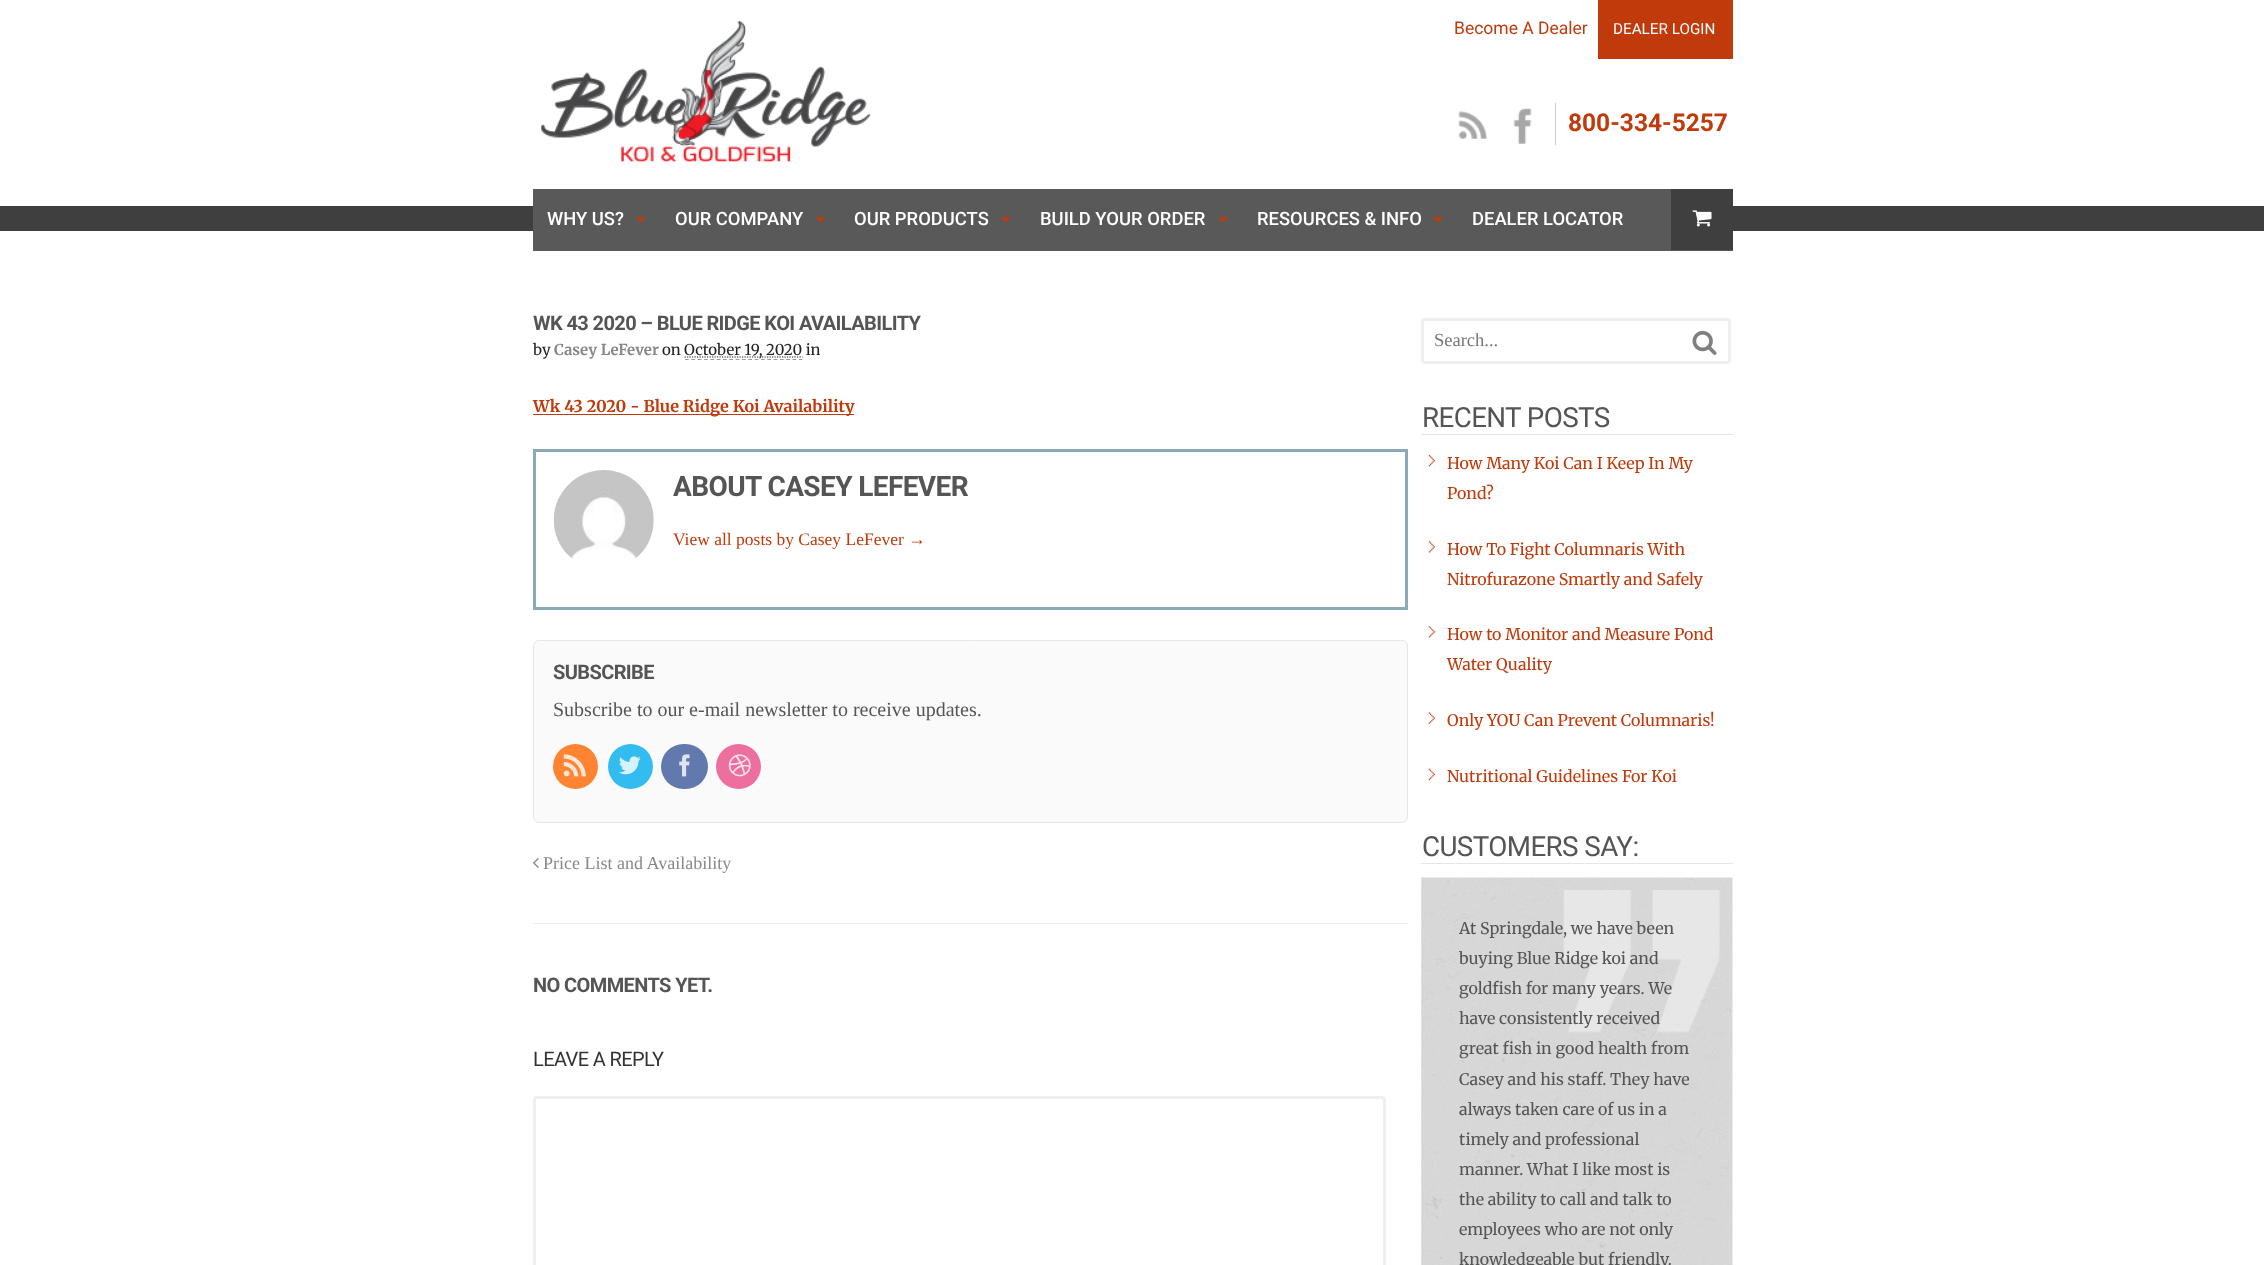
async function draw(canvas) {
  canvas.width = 2264
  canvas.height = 1265
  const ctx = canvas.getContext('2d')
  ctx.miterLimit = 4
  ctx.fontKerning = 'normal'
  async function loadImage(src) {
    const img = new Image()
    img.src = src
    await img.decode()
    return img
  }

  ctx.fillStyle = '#fff'
  ctx.fillRect(0, 0, 2264, 1265)
  ctx.drawImage(await loadImage('image0.png'), 541, 21, 330, 141)
  ctx.font = '17.5px Roboto'
  ctx.fillStyle = '#c03a0b'
  ctx.fillText('Become A Dealer', 1454, 34)
  ctx.fillRect(1598, 0, 135, 59)
  ctx.font = '15.25px Roboto'
  ctx.fillStyle = '#fff'
  ctx.fillText('DEALER LOGIN', 1613, 34)
  ctx.drawImage(await loadImage('image1.png'), 1458, 111, 29, 28)
  ctx.drawImage(await loadImage('image2.png'), 1513, 108, 19, 36)
  ctx.fillStyle = '#ccc'
  ctx.fillRect(1555, 103, 1, 42)
  ctx.font = 'bold 24.5px Roboto'
  ctx.fillStyle = '#c03a0b'
  ctx.fillText('800-334-5257', 1568, 131)
  ctx.fillStyle = '#3f3f3f'
  ctx.fillRect(0, 206, 2264, 25)
  ctx.fillStyle = '#595959'
  ctx.fillRect(533, 189, 1200, 62)
  ctx.font = '500 18.4px Roboto'
  ctx.fillStyle = '#fff'
  ctx.fillText('WHY US?', 547, 225)
  ctx.drawImage(await loadImage('image3.png'), 636, 217, 10, 6)
  ctx.fillText('OUR COMPANY', 675, 225)
  ctx.drawImage(await loadImage('image3.png'), 816, 217, 10, 6)
  ctx.fillText('OUR PRODUCTS', 854, 225)
  ctx.drawImage(await loadImage('image3.png'), 1001, 217, 10, 6)
  ctx.fillText('BUILD YOUR ORDER', 1040, 225)
  ctx.drawImage(await loadImage('image4.png'), 1218, 217, 10, 6)
  ctx.fillText('RESOURCES & INFO', 1257, 225)
  ctx.drawImage(await loadImage('image4.png'), 1433, 217, 10, 6)
  ctx.fillText('DEALER LOCATOR', 1472, 225)
  ctx.fillStyle = '#3f3f3f'
  ctx.fillRect(1671, 189, 62, 61)
  ctx.drawImage(await loadImage('image5.png'), 1692, 210, 20, 17)
  ctx.letterSpacing = '-0.6px'
  ctx.font = 'bold 20px Roboto'
  ctx.fillStyle = '#555'
  ctx.fillText('WK 43 2020 – BLUE RIDGE KOI AVAILABILITY', 533, 330)
  ctx.letterSpacing = '0px'
  ctx.font = '15px Merriweather'
  ctx.fillStyle = '#222'
  ctx.fillText('by', 533, 355)
  ctx.font = 'bold 15px Merriweather'
  ctx.fillStyle = '#888'
  ctx.fillText('Casey LeFever', 554, 355)
  ctx.font = '15px Merriweather'
  ctx.fillStyle = '#222'
  ctx.fillText('on', 662, 355)
  ctx.beginPath()
  ctx.moveTo(685, 359.5)
  ctx.lineTo(802.5, 359.5)
  ctx.strokeStyle = '#999'
  ctx.lineWidth = 1.2
  ctx.setLineDash([3.75, 2.58])
  ctx.stroke()
  ctx.beginPath()
  ctx.moveTo(684.5, 357)
  ctx.lineTo(802.5, 357)
  ctx.strokeStyle = '#222'
  ctx.setLineDash([1.25, 1.25])
  ctx.stroke()
  ctx.fillText('October 19, 2020 in', 684, 355)
  ctx.fillStyle = '#c03a0b'
  ctx.fillRect(533, 414, 321, 1)
  ctx.font = 'bold 16.25px Merriweather'
  ctx.fillText('Wk 43 2020 - Blue Ridge Koi Availability', 533, 412)
  ctx.strokeStyle = '#89aab6'
  ctx.lineWidth = 3
  ctx.setLineDash([])
  ctx.strokeRect(534.5, 450.5, 872, 158)
  ctx.drawImage(await loadImage('image6.png'), 554, 470, 100, 89)
  ctx.letterSpacing = '-0.6px'
  ctx.font = 'bold 28px Roboto'
  ctx.fillStyle = '#555'
  ctx.fillText('ABOUT CASEY LEFEVER', 673, 496)
  ctx.letterSpacing = '0px'
  ctx.font = '17.5px Liberation Serif'
  ctx.fillStyle = '#c03a0b'
  ctx.fillText('View all posts by Casey LeFever →', 673, 545)
  ctx.fillStyle = '#fafafa'
  ctx.beginPath()
  ctx.roundRect(533.5, 640.5, 874, 182, 5.5)
  ctx.fill()
  ctx.strokeStyle = '#e6e6e6'
  ctx.lineWidth = 1
  ctx.stroke()
  ctx.letterSpacing = '-0.6px'
  ctx.font = 'bold 20px Roboto'
  ctx.fillStyle = '#555'
  ctx.fillText('SUBSCRIBE', 553, 679)
  ctx.letterSpacing = '0px'
  ctx.font = '20px Liberation Serif'
  ctx.fillText('Subscribe to our e-mail newsletter to receive updates.', 553, 716)
  ctx.fillStyle = '#fe8432'
  ctx.beginPath()
  ctx.arc(575.5, 766.5, 22.5, 0, 2 * Math.PI)
  ctx.fill()
  ctx.drawImage(await loadImage('image7.png'), 563, 754, 23, 23)
  ctx.fillStyle = '#32bcf0'
  ctx.beginPath()
  ctx.arc(630.5, 766.5, 22.5, 0, 2 * Math.PI)
  ctx.fill()
  ctx.drawImage(await loadImage('image8.png'), 619, 756, 22, 19)
  ctx.fillStyle = '#6179ac'
  ctx.beginPath()
  ctx.roundRect(661, 744, 47, 45, 22.5)
  ctx.fill()
  ctx.drawImage(await loadImage('image9.png'), 679, 754, 11, 23)
  ctx.fillStyle = '#ed6fa0'
  ctx.beginPath()
  ctx.arc(738.5, 766.5, 22.5, 0, 2 * Math.PI)
  ctx.fill()
  ctx.drawImage(await loadImage('image10.png'), 728, 754, 23, 23)
  ctx.drawImage(await loadImage('image11.png'), 533, 858, 6, 10)
  ctx.font = '18px Liberation Serif'
  ctx.fillStyle = '#888'
  ctx.fillText('Price List and Availability', 543, 869)
  ctx.fillStyle = '#ededed'
  ctx.fillRect(533, 923, 875, 1)
  ctx.letterSpacing = '-0.6px'
  ctx.font = 'bold 20px Roboto'
  ctx.fillStyle = '#555'
  ctx.fillText('NO COMMENTS YET.', 533, 992)
  ctx.font = '20px Roboto'
  ctx.fillStyle = '#333'
  ctx.fillText('LEAVE A REPLY', 533, 1066)
  ctx.beginPath()
  ctx.roundRect(534.5, 1097.5, 850, 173, 2.5)
  ctx.strokeStyle = '#efefef'
  ctx.lineWidth = 3
  ctx.stroke()
  ctx.beginPath()
  ctx.roundRect(1422.5, 319.5, 307, 43, 2.5)
  ctx.stroke()
  ctx.letterSpacing = '0px'
  ctx.font = '18.5px Liberation Serif'
  ctx.fillStyle = '#777'
  ctx.fillText('Search...', 1434, 346)
  ctx.drawImage(await loadImage('image12.png'), 1692, 330, 25, 25)
  ctx.fillStyle = '#e6e6e6'
  ctx.fillRect(1421, 434, 312, 1)
  ctx.letterSpacing = '-0.6px'
  ctx.font = '27.75px Roboto'
  ctx.fillStyle = '#555'
  ctx.fillText('RECENT POSTS', 1422, 427)
  ctx.drawImage(await loadImage('image13.png'), 1428, 454, 8, 13)
  ctx.letterSpacing = '0px'
  ctx.font = '16px Merriweather'
  ctx.fillStyle = '#c03a0b'
  ctx.fillText('How Many Koi Can I Keep In My', 1447, 469)
  ctx.fillText('Pond?', 1447, 499)
  ctx.drawImage(await loadImage('image14.png'), 1428, 541, 8, 12)
  ctx.fillText('How To Fight Columnaris With', 1447, 555)
  ctx.fillText('Nitrofurazone Smartly and Safely', 1447, 585)
  ctx.drawImage(await loadImage('image14.png'), 1428, 626, 8, 12)
  ctx.fillText('How to Monitor and Measure Pond', 1447, 640)
  ctx.fillText('Water Quality', 1447, 670)
  ctx.drawImage(await loadImage('image15.png'), 1428, 712, 8, 12)
  ctx.fillText('Only YOU Can Prevent Columnaris!', 1447, 726)
  ctx.drawImage(await loadImage('image16.png'), 1428, 768, 8, 13)
  ctx.fillText('Nutritional Guidelines For Koi', 1447, 782)
  ctx.fillStyle = '#e6e6e6'
  ctx.fillRect(1421, 863, 312, 1)
  ctx.letterSpacing = '-0.6px'
  ctx.font = '27.75px Roboto'
  ctx.fillStyle = '#555'
  ctx.fillText('CUSTOMERS SAY:', 1422, 856)
  ctx.drawImage(await loadImage('image17.png'), 1421, 877, 312, 388)
  ctx.drawImage(await loadImage('image18.png'), 1563, 890, 157, 143)
  ctx.letterSpacing = '0px'
  ctx.font = '16px Merriweather'
  ctx.fillText('At Springdale, we have been', 1459, 934)
  ctx.fillText('buying Blue Ridge koi and', 1459, 964)
  ctx.fillText('goldfish for many years. We', 1459, 994)
  ctx.fillText('have consistently received', 1459, 1024)
  ctx.fillText('great fish in good health from', 1459, 1054)
  ctx.fillText('Casey and his staff. They have', 1459, 1085)
  ctx.fillText('always taken care of us in a', 1459, 1115)
  ctx.fillText('timely and professional', 1459, 1145)
  ctx.fillText('manner. What I like most is', 1459, 1175)
  ctx.fillText('the ability to call and talk to', 1459, 1205)
  ctx.fillText('employees who are not only', 1459, 1235)
  ctx.fillText('knowledgeable but friendly.', 1459, 1265)
}

draw(document.querySelector('canvas'))
